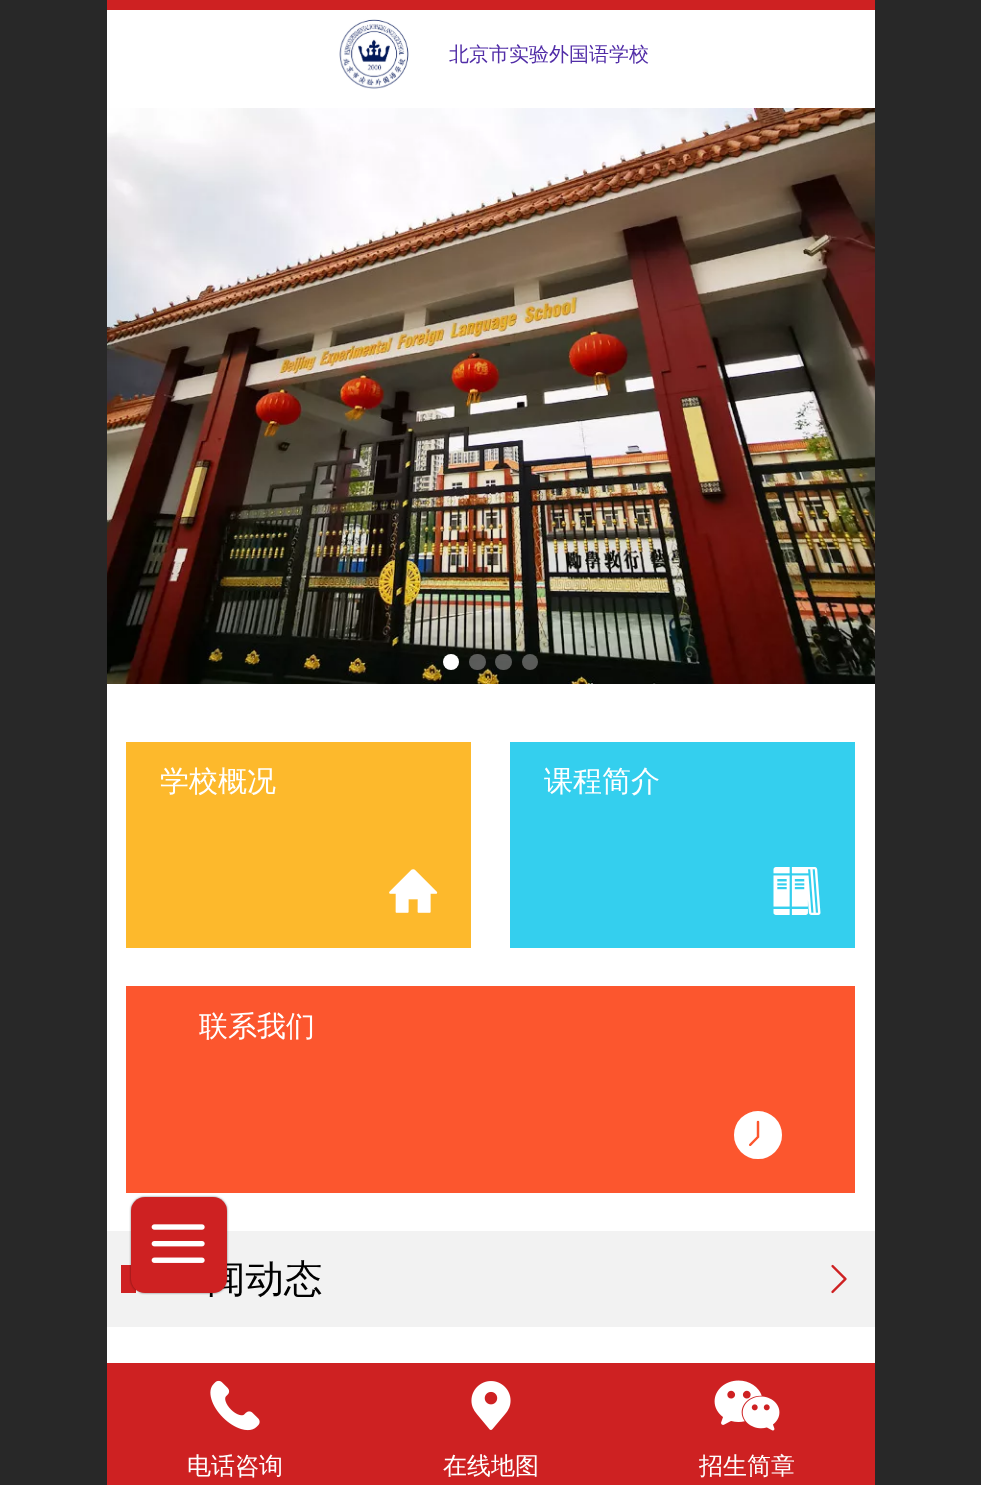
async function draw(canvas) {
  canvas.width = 981
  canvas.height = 1485
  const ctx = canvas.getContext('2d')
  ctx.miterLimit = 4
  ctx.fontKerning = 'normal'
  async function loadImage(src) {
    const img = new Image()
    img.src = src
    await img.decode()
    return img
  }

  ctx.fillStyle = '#fff'
  ctx.fillRect(0, 0, 981, 1485)
  ctx.fillStyle = '#282828'
  ctx.fillRect(0, 0, 107, 1485)
  ctx.fillStyle = '#ce2122'
  ctx.fillRect(107, 0, 768, 10)
  ctx.drawImage(await loadImage('image0.png'), 339, 19, 70, 70)
  ctx.font = '500 20px WenQuanYi Zen Hei'
  ctx.fillStyle = '#512da7'
  ctx.fillText('北京市实验外国语学校', 449, 61)
  ctx.fillStyle = '#f2f2f2'
  ctx.fillRect(107, 1231, 768, 96)
  ctx.fillStyle = '#ce2122'
  ctx.fillRect(121, 1265, 15, 28)
  ctx.fillStyle = '#fff'
  ctx.fillRect(136, 1289, 9, 4)
  ctx.fillStyle = '#00000080'
  ctx.filter = 'blur(1px)'
  ctx.beginPath()
  ctx.roundRect(131, 1197, 96, 96, 14)
  ctx.fill()
  ctx.filter = 'none'
  ctx.font = '500 38.5px WenQuanYi Zen Hei'
  ctx.fillStyle = '#000'
  ctx.fillText('闻动态', 207, 1292)
  ctx.fillStyle = '#ce2122'
  ctx.beginPath()
  ctx.roundRect(131, 1197, 96, 96, 14)
  ctx.fill()
  ctx.drawImage(await loadImage('image1.png'), 151, 1224, 54, 39)
  ctx.drawImage(await loadImage('image2.png'), 107, 108, 768, 576)
  ctx.fillStyle = '#fff'
  ctx.beginPath()
  ctx.arc(451, 662, 8, 0, 2 * Math.PI)
  ctx.fill()
  ctx.fillStyle = '#ababab80'
  ctx.beginPath()
  ctx.roundRect(469, 654, 17, 16, 8)
  ctx.fill()
  ctx.beginPath()
  ctx.roundRect(495, 654, 17, 16, 8)
  ctx.fill()
  ctx.beginPath()
  ctx.arc(530, 662, 8, 0, 2 * Math.PI)
  ctx.fill()
  ctx.fillStyle = '#fdb92c'
  ctx.fillRect(126, 742, 345, 206)
  ctx.font = '500 29px WenQuanYi Zen Hei'
  ctx.fillStyle = '#fff'
  ctx.fillText('学校概况', 160, 791)
  ctx.font = '48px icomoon'
  ctx.fillText('򠡁', 389, 912)
  ctx.fillStyle = '#34cfee'
  ctx.fillRect(510, 742, 345, 206)
  ctx.font = '500 29px WenQuanYi Zen Hei'
  ctx.fillStyle = '#fff'
  ctx.fillText('课程简介', 544, 791)
  ctx.font = '48px icomoon'
  ctx.fillText('򠖑', 773, 912)
  ctx.fillStyle = '#fc562e'
  ctx.fillRect(126, 986, 729, 207)
  ctx.font = '500 29px WenQuanYi Zen Hei'
  ctx.fillStyle = '#fff'
  ctx.fillText('联系我们', 199, 1036)
  ctx.font = '48px icomoon'
  ctx.fillText('򠄅', 734, 1156)
  ctx.drawImage(await loadImage('image3.png'), 831, 1264, 16, 30)
  ctx.fillStyle = '#ce2122'
  ctx.fillRect(107, 1363, 768, 122)
  ctx.drawImage(await loadImage('image4.png'), 210, 1380, 50, 51)
  ctx.font = '500 24px WenQuanYi Zen Hei'
  ctx.fillStyle = '#fff'
  ctx.fillText('电话咨询', 187, 1474)
  ctx.drawImage(await loadImage('image5.png'), 471, 1381, 40, 49)
  ctx.fillText('在线地图', 443, 1474)
  ctx.drawImage(await loadImage('image6.png'), 714, 1380, 66, 51)
  ctx.fillText('招生简章', 699, 1474)
  ctx.fillStyle = '#282828'
  ctx.fillRect(875, 0, 106, 1485)
}

draw(document.querySelector('canvas'))
